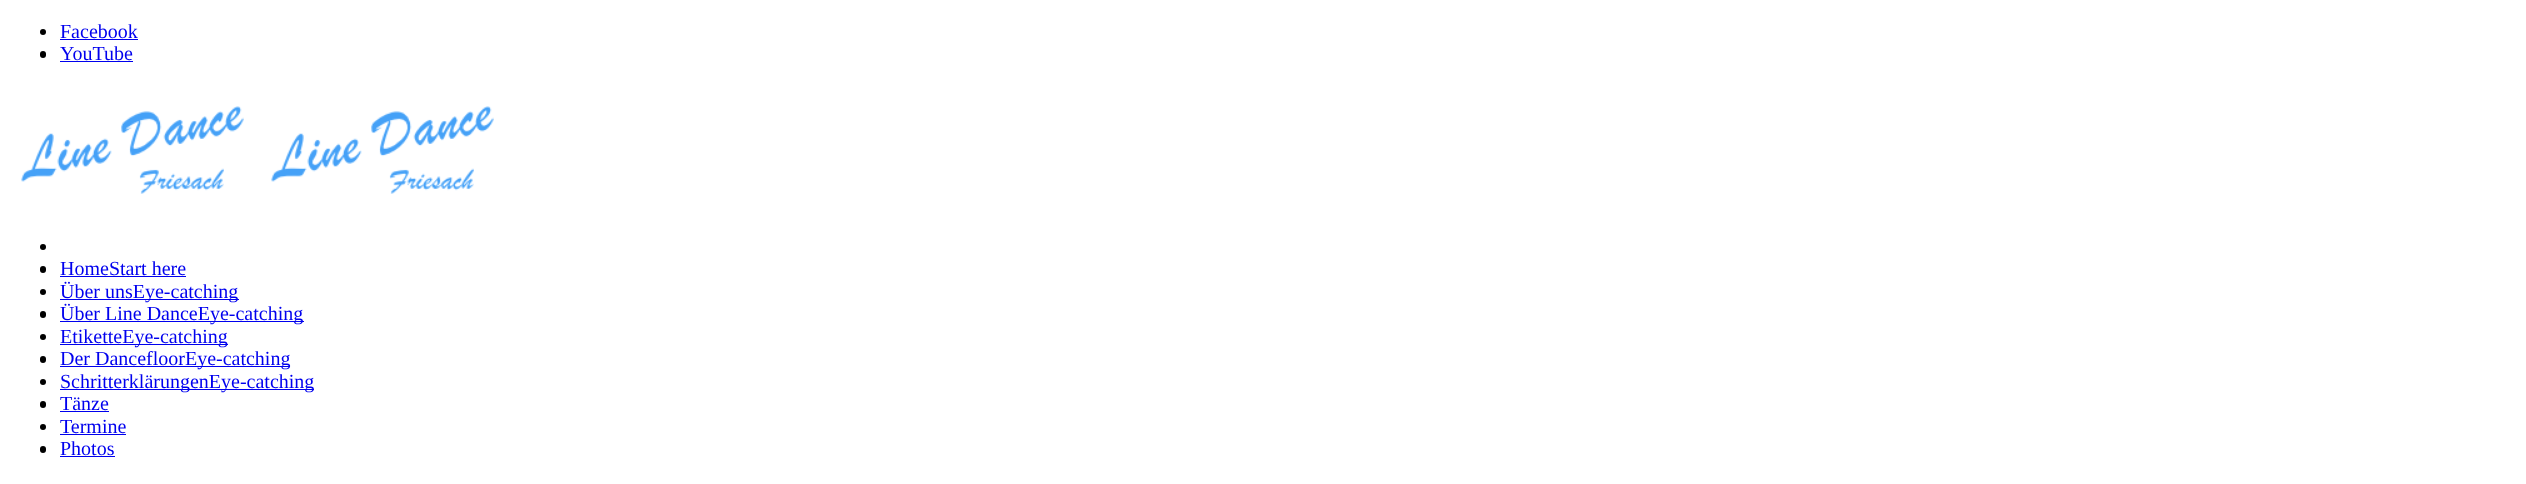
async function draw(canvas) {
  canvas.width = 2526
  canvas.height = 484
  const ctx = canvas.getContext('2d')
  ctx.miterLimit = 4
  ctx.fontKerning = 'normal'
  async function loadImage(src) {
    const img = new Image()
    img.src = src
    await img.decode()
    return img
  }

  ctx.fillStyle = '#fff'
  ctx.fillRect(0, 0, 2526, 484)
  ctx.fillStyle = '#000'
  ctx.beginPath()
  ctx.arc(43, 32, 3, 0, 2 * Math.PI)
  ctx.fill()
  ctx.font = '20px Liberation Serif'
  ctx.fillStyle = '#00e'
  ctx.fillText('Facebook', 60, 38)
  ctx.fillRect(60, 39, 78, 1)
  ctx.fillStyle = '#000'
  ctx.beginPath()
  ctx.roundRect(40, 51, 6, 7, 3)
  ctx.fill()
  ctx.fillStyle = '#00e'
  ctx.fillText('YouTube', 60, 60)
  ctx.fillRect(60, 61, 73, 1)
  ctx.drawImage(await loadImage('image0.png'), 21, 106, 223, 88)
  ctx.drawImage(await loadImage('image0.png'), 271, 106, 223, 88)
  ctx.fillStyle = '#000'
  ctx.beginPath()
  ctx.arc(43, 247, 3, 0, 2 * Math.PI)
  ctx.fill()
  ctx.beginPath()
  ctx.roundRect(40, 266, 6, 7, 3)
  ctx.fill()
  ctx.fillStyle = '#00e'
  ctx.fillText('HomeStart here', 60, 275)
  ctx.fillRect(60, 276, 126, 1)
  ctx.fillStyle = '#000'
  ctx.beginPath()
  ctx.arc(43, 292, 3, 0, 2 * Math.PI)
  ctx.fill()
  ctx.fillStyle = '#00e'
  ctx.fillRect(60, 299, 179, 1)
  ctx.fillText('Über unsEye-catching', 60, 298)
  ctx.fillStyle = '#000'
  ctx.beginPath()
  ctx.roundRect(40, 311, 6, 7, 3)
  ctx.fill()
  ctx.fillStyle = '#00e'
  ctx.fillRect(60, 321, 244, 1)
  ctx.fillText('Über Line DanceEye-catching', 60, 320)
  ctx.fillStyle = '#000'
  ctx.beginPath()
  ctx.arc(43, 337, 3, 0, 2 * Math.PI)
  ctx.fill()
  ctx.fillStyle = '#00e'
  ctx.fillRect(60, 344, 168, 1)
  ctx.fillText('EtiketteEye-catching', 60, 343)
  ctx.fillStyle = '#000'
  ctx.beginPath()
  ctx.roundRect(40, 356, 6, 7, 3)
  ctx.fill()
  ctx.fillStyle = '#00e'
  ctx.fillRect(60, 366, 230, 1)
  ctx.fillText('Der DancefloorEye-catching', 60, 365)
  ctx.fillStyle = '#000'
  ctx.beginPath()
  ctx.arc(43, 382, 3, 0, 2 * Math.PI)
  ctx.fill()
  ctx.fillStyle = '#00e'
  ctx.fillRect(60, 389, 254, 1)
  ctx.fillText('SchritterklärungenEye-catching', 60, 388)
  ctx.fillStyle = '#000'
  ctx.beginPath()
  ctx.roundRect(40, 401, 6, 7, 3)
  ctx.fill()
  ctx.fillStyle = '#00e'
  ctx.fillText('Tänze', 60, 410)
  ctx.fillRect(60, 411, 49, 1)
  ctx.fillStyle = '#000'
  ctx.beginPath()
  ctx.arc(43, 427, 3, 0, 2 * Math.PI)
  ctx.fill()
  ctx.fillStyle = '#00e'
  ctx.fillText('Termine', 60, 433)
  ctx.fillRect(60, 434, 66, 1)
  ctx.fillStyle = '#000'
  ctx.beginPath()
  ctx.roundRect(40, 446, 6, 7, 3)
  ctx.fill()
  ctx.fillStyle = '#00e'
  ctx.fillText('Photos', 60, 455)
  ctx.fillRect(60, 456, 55, 1)
}

draw(document.querySelector('canvas'))
